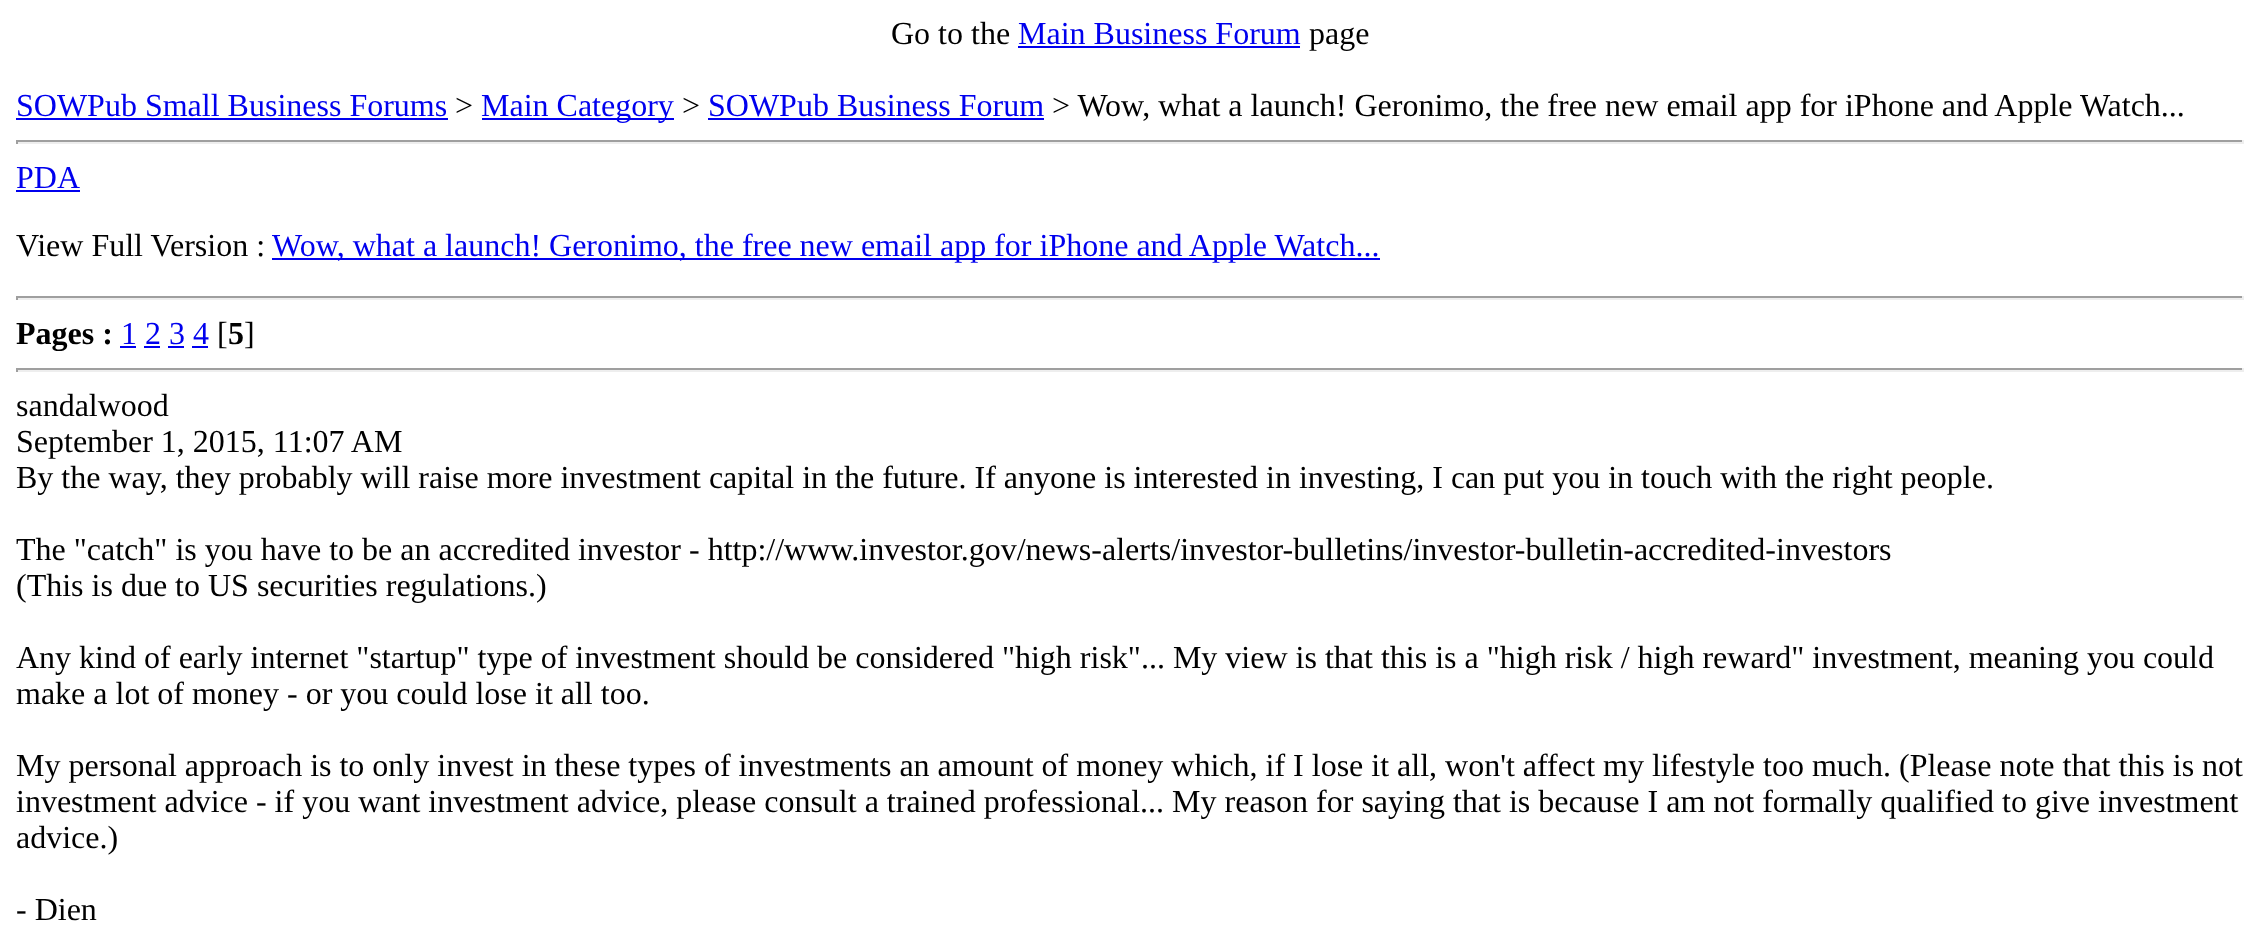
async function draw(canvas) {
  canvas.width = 2260
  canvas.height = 942
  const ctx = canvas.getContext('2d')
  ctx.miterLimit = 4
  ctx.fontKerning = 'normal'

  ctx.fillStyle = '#fff'
  ctx.fillRect(0, 0, 2260, 942)
  ctx.font = '32px Liberation Serif'
  ctx.fillStyle = '#000'
  ctx.fillText('Go to the', 891, 44)
  ctx.fillStyle = '#00e'
  ctx.fillText('Main Business Forum', 1018, 44)
  ctx.fillRect(1018, 46, 282, 2)
  ctx.fillStyle = '#000'
  ctx.fillText('page', 1309, 44)
  ctx.fillStyle = '#00e'
  ctx.fillText('SOWPub Small Business Forums', 16, 116)
  ctx.fillRect(16, 118, 432, 2)
  ctx.fillStyle = '#000'
  ctx.fillText('>', 455, 116)
  ctx.fillStyle = '#00e'
  ctx.fillRect(482, 118, 192, 2)
  ctx.fillText('Main Category', 481, 116)
  ctx.fillStyle = '#000'
  ctx.fillText('>', 682, 116)
  ctx.fillStyle = '#00e'
  ctx.fillText('SOWPub Business Forum', 708, 116)
  ctx.fillRect(708, 118, 336, 2)
  ctx.fillStyle = '#000'
  ctx.fillText('> Wow, what a launch! Geronimo, the free new email app for iPhone and Apple Watch...', 1052, 116)
  ctx.fillStyle = '#9f9f9f'
  ctx.fillRect(16, 140, 2228, 2)
  ctx.fillStyle = '#eee'
  ctx.fillRect(2242, 140, 2, 4)
  ctx.fillRect(16, 142, 2228, 2)
  ctx.fillStyle = '#9f9f9f'
  ctx.fillRect(16, 140, 2, 4)
  ctx.fillStyle = '#00e'
  ctx.fillText('PDA', 16, 188)
  ctx.fillRect(16, 190, 64, 2)
  ctx.fillStyle = '#000'
  ctx.fillText('View Full Version :', 16, 256)
  ctx.fillStyle = '#00e'
  ctx.fillRect(272, 258, 1108, 2)
  ctx.fillText('Wow, what a launch! Geronimo, the free new email app for iPhone and Apple Watch...', 272, 256)
  ctx.fillStyle = '#9f9f9f'
  ctx.fillRect(16, 296, 2228, 2)
  ctx.fillStyle = '#eee'
  ctx.fillRect(2242, 296, 2, 4)
  ctx.fillRect(16, 298, 2228, 2)
  ctx.fillStyle = '#9f9f9f'
  ctx.fillRect(16, 296, 2, 4)
  ctx.font = 'bold 32px Liberation Serif'
  ctx.fillStyle = '#000'
  ctx.fillText('Pages :', 16, 344)
  ctx.font = '32px Liberation Serif'
  ctx.fillStyle = '#00e'
  ctx.fillText('1 2 3 4', 121, 344)
  ctx.fillRect(120, 346, 16, 2)
  ctx.fillStyle = '#000'
  ctx.fillText('[', 217, 344)
  ctx.font = 'bold 32px Liberation Serif'
  ctx.fillText('5', 228, 344)
  ctx.font = '32px Liberation Serif'
  ctx.fillText(']', 244, 344)
  ctx.fillStyle = '#00e'
  ctx.fillRect(144, 346, 16, 2)
  ctx.fillRect(168, 346, 16, 2)
  ctx.fillRect(192, 346, 16, 2)
  ctx.fillStyle = '#9f9f9f'
  ctx.fillRect(16, 368, 2228, 2)
  ctx.fillStyle = '#eee'
  ctx.fillRect(2242, 368, 2, 4)
  ctx.fillRect(16, 370, 2228, 2)
  ctx.fillStyle = '#9f9f9f'
  ctx.fillRect(16, 368, 2, 4)
  ctx.fillStyle = '#000'
  ctx.fillText('sandalwood', 16, 416)
  ctx.fillText('September 1, 2015, 11:07 AM', 16, 452)
  ctx.fillText('By the way, they probably will raise more investment capital in the future. If anyone is interested in investing, I can put you in touch with the right people.', 16, 488)
  ctx.fillText('The "catch" is you have to be an accredited investor - http://www.investor.gov/news-alerts/investor-bulletins/investor-bulletin-accredited-investors', 16, 560)
  ctx.fillText('(This is due to US securities regulations.)', 16, 596)
  ctx.fillText('Any kind of early internet "startup" type of investment should be considered "high risk"... My view is that this is a "high risk / high reward" investment, meaning you could', 16, 668)
  ctx.fillText('make a lot of money - or you could lose it all too.', 16, 704)
  ctx.fillText('My personal approach is to only invest in these types of investments an amount of money which, if I lose it all, won\'t affect my lifestyle too much. (Please note that this is not', 16, 776)
  ctx.fillText('investment advice - if you want investment advice, please consult a trained professional... My reason for saying that is because I am not formally qualified to give investment', 16, 812)
  ctx.fillText('advice.)', 16, 848)
  ctx.fillText('- Dien', 16, 920)
}

draw(document.querySelector('canvas'))
